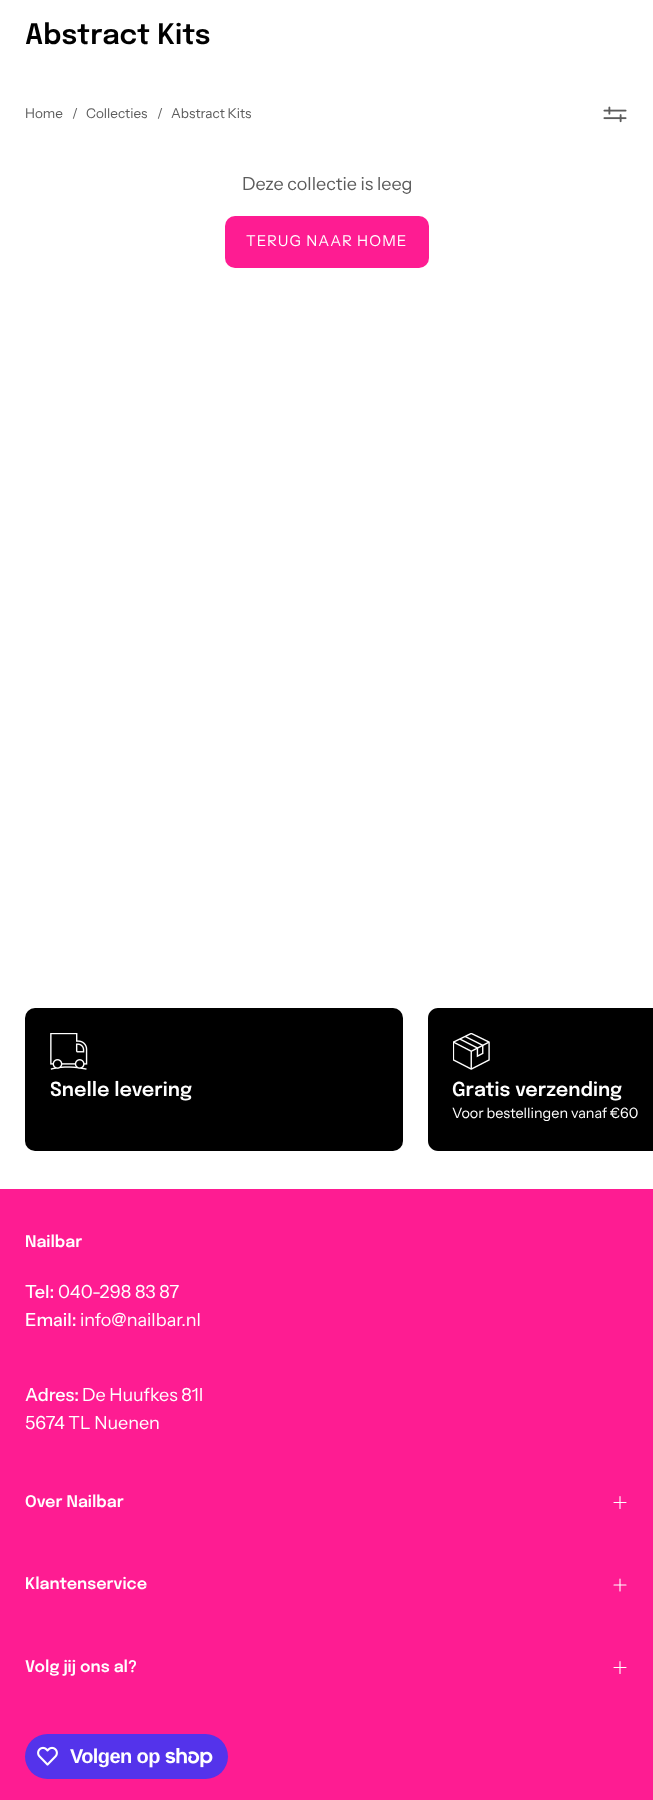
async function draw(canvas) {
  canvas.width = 653
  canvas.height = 1800
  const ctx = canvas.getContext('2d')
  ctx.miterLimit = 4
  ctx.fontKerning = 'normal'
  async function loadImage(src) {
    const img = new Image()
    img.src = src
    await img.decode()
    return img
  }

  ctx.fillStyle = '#fff'
  ctx.fillRect(0, 0, 653, 1800)
  ctx.font = '600 28px Epilogue'
  ctx.fillStyle = '#000'
  ctx.fillText('Abstract Kits', 25, 44)
  ctx.font = '13.5px Instrument Sans'
  ctx.fillStyle = '#5c5c5c'
  ctx.fillText('Home', 25, 118)
  ctx.fillText('/', 72, 118)
  ctx.fillText('Collecties', 86, 118)
  ctx.fillText('/', 157, 118)
  ctx.fillText('Abstract Kits', 171, 118)
  ctx.drawImage(await loadImage('image0.png'), 603, 106, 24, 17)
  ctx.font = '18px Instrument Sans'
  ctx.fillText('Deze collectie is leeg', 242, 190)
  ctx.fillStyle = '#fe1c92'
  ctx.beginPath()
  ctx.roundRect(225, 216, 204, 52, 10)
  ctx.fill()
  ctx.letterSpacing = '1.1px'
  ctx.font = '15px Instrument Sans'
  ctx.fillStyle = '#fff'
  ctx.fillText('TERUG NAAR HOME', 246, 246)
  ctx.fillStyle = '#000'
  ctx.beginPath()
  ctx.roundRect(25, 1008, 378, 143, 10)
  ctx.fill()
  ctx.drawImage(await loadImage('image1.png'), 50, 1033, 38, 37)
  ctx.letterSpacing = '0px'
  ctx.font = '600 19.25px Epilogue'
  ctx.fillStyle = '#fff'
  ctx.fillText('Snelle levering', 50, 1096)
  ctx.fillStyle = '#000'
  ctx.beginPath()
  ctx.moveTo(438, 1008)
  ctx.lineTo(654, 1008)
  ctx.lineTo(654, 1151)
  ctx.lineTo(438, 1151)
  ctx.bezierCurveTo(432.5, 1151, 428, 1146.5, 428, 1141)
  ctx.lineTo(428, 1018)
  ctx.bezierCurveTo(428, 1012.5, 432.5, 1008, 438, 1008)
  ctx.closePath()
  ctx.fill()
  ctx.drawImage(await loadImage('image2.png'), 453, 1033, 37, 37)
  ctx.fillStyle = '#fff'
  ctx.fillText('Gratis verzending', 452, 1096)
  ctx.font = '14.4px Instrument Sans'
  ctx.fillText('Voor bestellingen vanaf €60', 452, 1118)
  ctx.fillStyle = '#fe1c92'
  ctx.fillRect(0, 1189, 653, 611)
  ctx.font = '600 16px Epilogue'
  ctx.fillStyle = '#fff'
  ctx.fillText('Nailbar', 25, 1247)
  ctx.font = '500 18px Instrument Sans'
  ctx.fillText('Tel:', 25, 1298)
  ctx.font = '18px Instrument Sans'
  ctx.fillText('040-298 83 87', 58, 1298)
  ctx.font = '500 18px Instrument Sans'
  ctx.fillText('Email:', 25, 1326)
  ctx.font = '18px Instrument Sans'
  ctx.fillText('info@nailbar.nl', 80, 1326)
  ctx.font = '500 18px Instrument Sans'
  ctx.fillText('Adres:', 25, 1401)
  ctx.font = '18px Instrument Sans'
  ctx.fillText('De Huufkes 81I', 82, 1401)
  ctx.fillText('5674 TL Nuenen', 25, 1429)
  ctx.font = '600 16px Epilogue'
  ctx.fillText('Over Nailbar', 25, 1507)
  ctx.beginPath()
  ctx.moveTo(614, 1502.5)
  ctx.lineTo(626, 1502.5)
  ctx.moveTo(620, 1496.5)
  ctx.lineTo(620, 1508.5)
  ctx.moveTo(614, 1502.5)
  ctx.lineTo(626, 1502.5)
  ctx.strokeStyle = '#fff'
  ctx.lineWidth = 1.1
  ctx.lineCap = 'round'
  ctx.lineJoin = 'round'
  ctx.stroke()
  ctx.fillText('Klantenservice', 25, 1589)
  ctx.beginPath()
  ctx.moveTo(614, 1585)
  ctx.lineTo(626, 1585)
  ctx.moveTo(620, 1579)
  ctx.lineTo(620, 1591)
  ctx.stroke()
  ctx.fillText('Volg jij ons al?', 25, 1672)
  ctx.beginPath()
  ctx.moveTo(614, 1667.5)
  ctx.lineTo(626, 1667.5)
  ctx.moveTo(620, 1661.5)
  ctx.lineTo(620, 1673.5)
  ctx.moveTo(614, 1667.5)
  ctx.lineTo(626, 1667.5)
  ctx.stroke()
  ctx.fillStyle = '#5433eb'
  ctx.beginPath()
  ctx.roundRect(25, 1734, 203, 45, 22.5)
  ctx.fill()
  ctx.drawImage(await loadImage('image3.png'), 37, 1746, 21, 20)
  ctx.letterSpacing = '-0.6px'
  ctx.font = 'bold 20px Liberation Sans'
  ctx.fillStyle = '#fff'
  ctx.fillText('Volgen op', 70, 1763)
  ctx.drawImage(await loadImage('image4.png'), 165, 1748, 48, 20)
}

draw(document.querySelector('canvas'))
